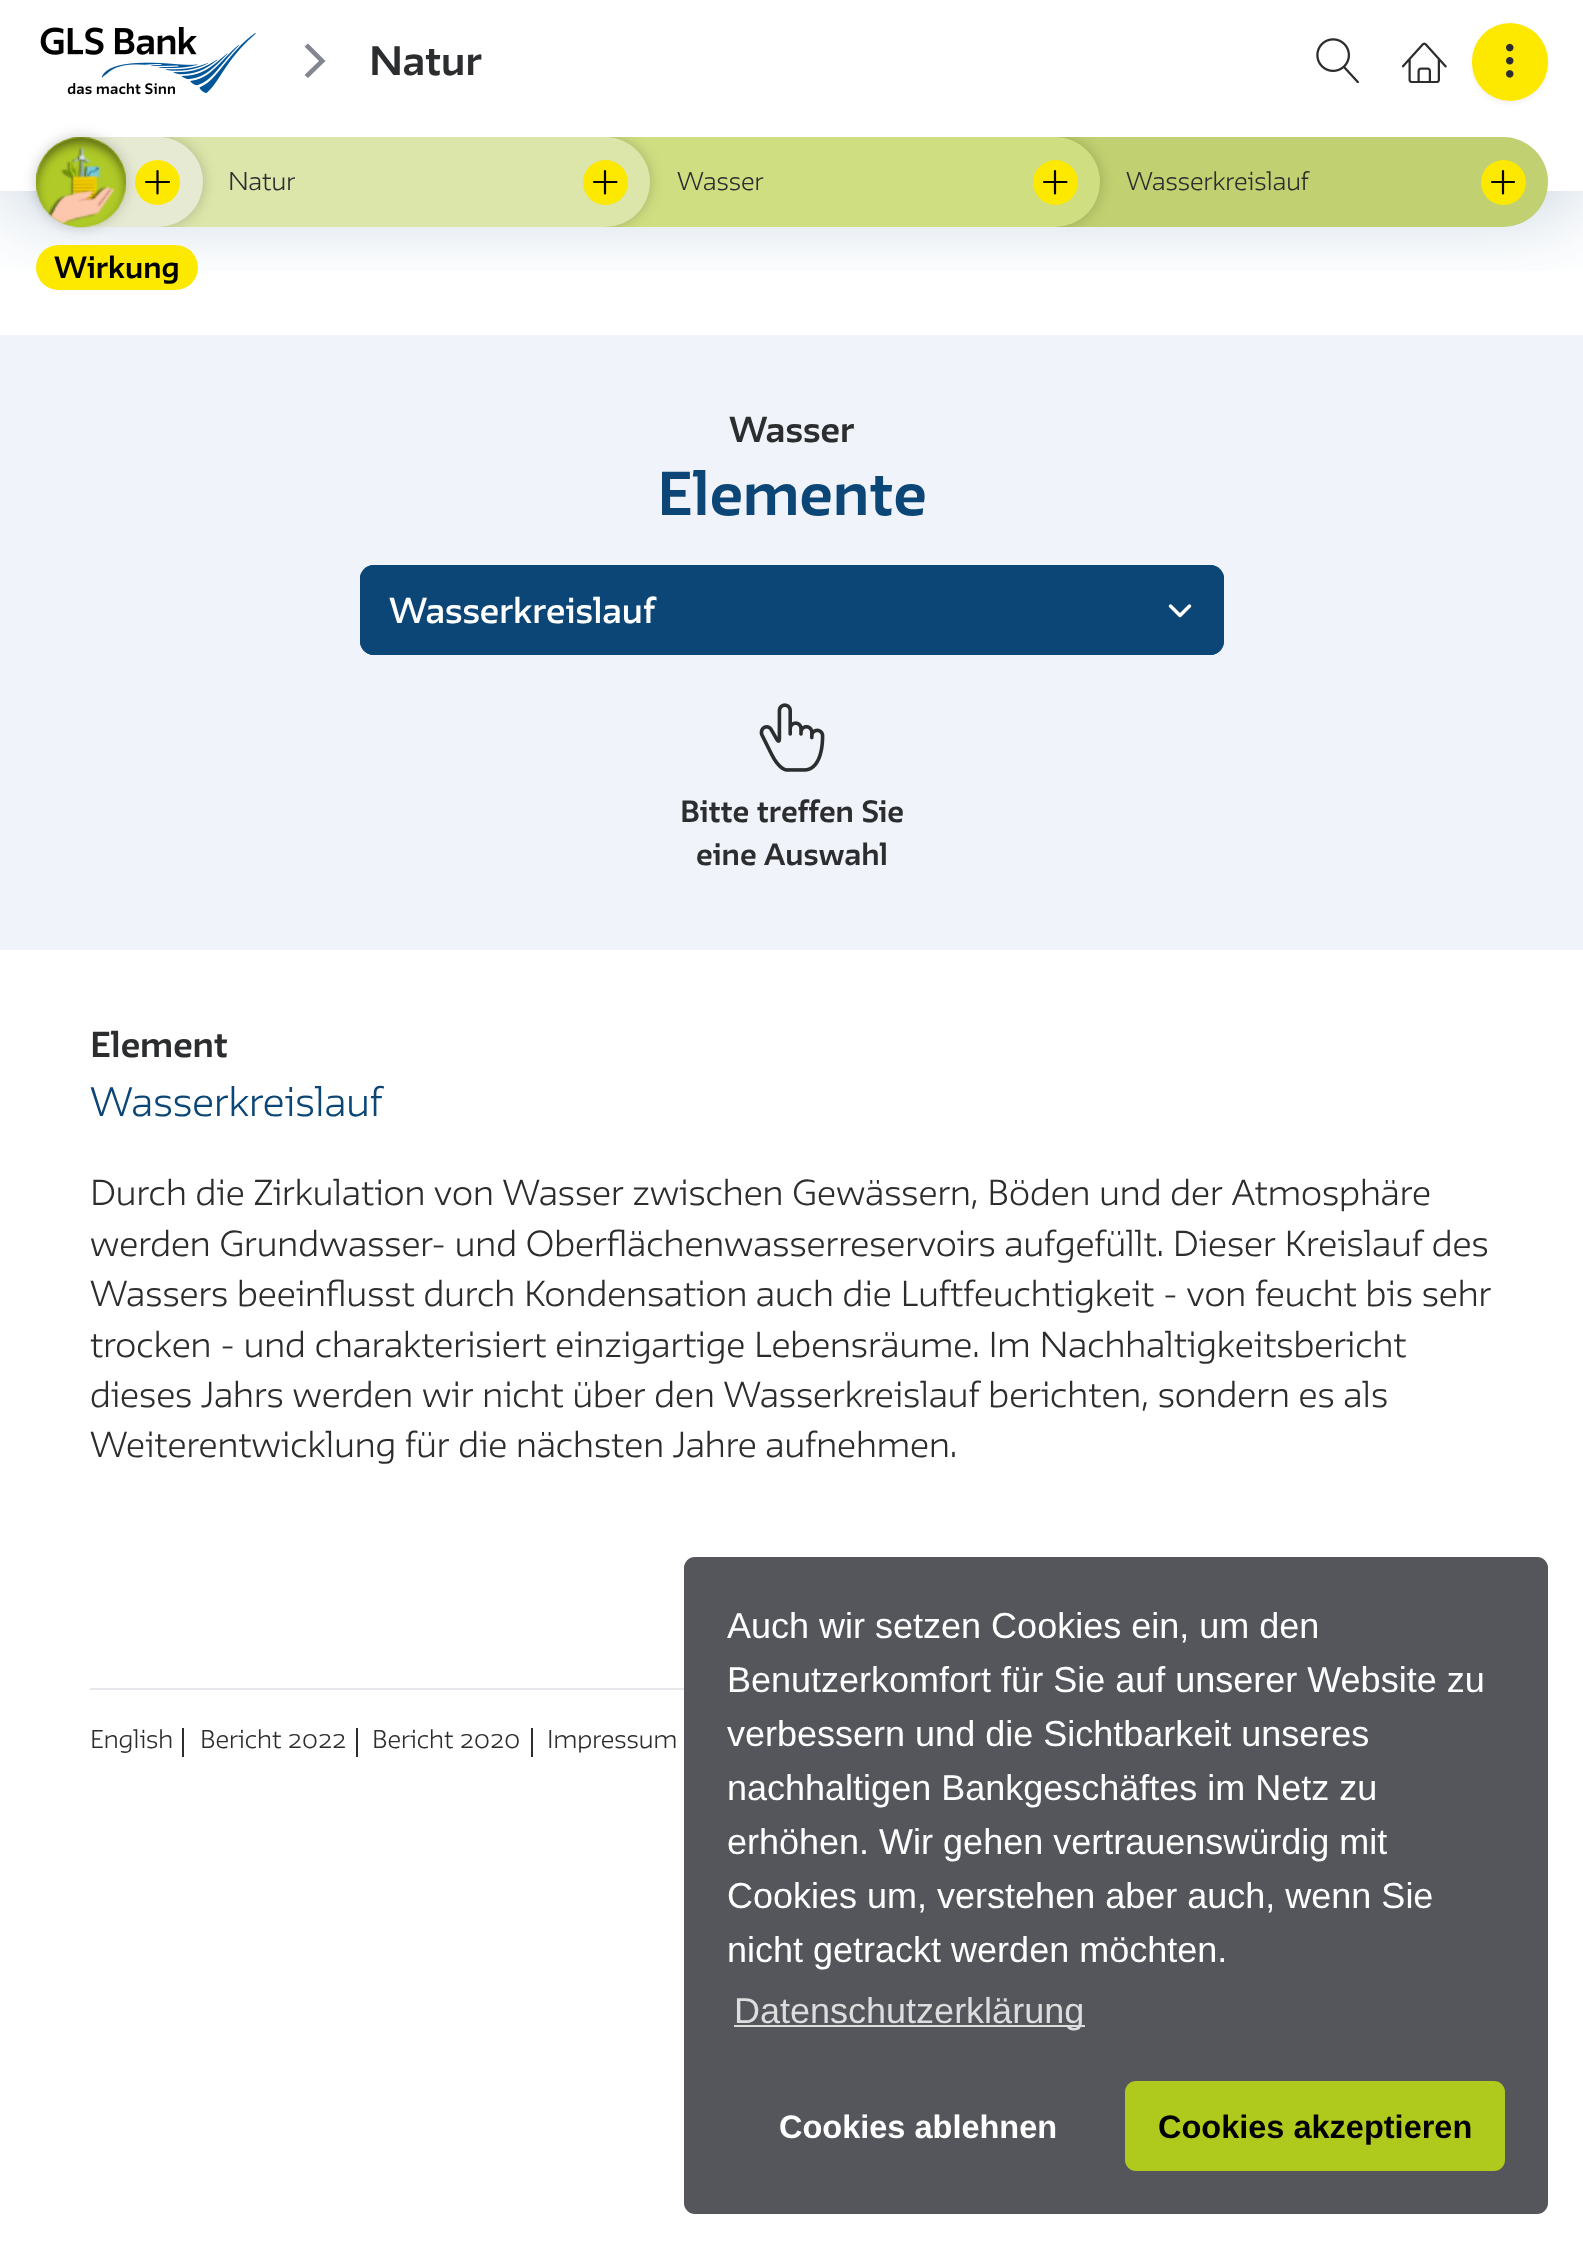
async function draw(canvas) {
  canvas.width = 1583
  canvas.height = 2249
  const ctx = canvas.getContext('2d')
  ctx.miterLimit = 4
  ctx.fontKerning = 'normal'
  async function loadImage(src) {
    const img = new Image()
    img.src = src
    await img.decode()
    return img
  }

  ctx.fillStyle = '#fff'
  ctx.fillRect(0, 0, 1583, 2249)
  ctx.fillStyle = '#f0f4fa'
  ctx.fillRect(0, 335, 1583, 615)
  ctx.save()
  ctx.beginPath()
  ctx.rect(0, 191, 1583, 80)
  ctx.clip()
  ctx.fillStyle = '#0b46764d'
  ctx.filter = 'blur(45px)'
  ctx.beginPath()
  ctx.rect(11, 34, 1562, 169)
  ctx.fill()
  ctx.filter = 'none'
  ctx.restore()
  ctx.drawImage(await loadImage('image0.png'), 40, 27, 216, 68)
  ctx.fillStyle = '#82868f'
  ctx.beginPath()
  ctx.moveTo(308, 78)
  ctx.lineTo(304.5, 75)
  ctx.lineTo(319, 61)
  ctx.lineTo(304.5, 46.5)
  ctx.lineTo(308, 43.5)
  ctx.lineTo(325.5, 61)
  ctx.closePath()
  ctx.fill()
  ctx.font = 'bold 36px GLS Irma'
  ctx.fillStyle = '#2c2d2f'
  ctx.fillText('Natur', 369, 75)
  ctx.drawImage(await loadImage('image1.png'), 1316, 38, 43, 45)
  ctx.drawImage(await loadImage('image2.png'), 1402, 42, 45, 41)
  ctx.fillStyle = '#0000000d'
  ctx.filter = 'blur(2px)'
  ctx.beginPath()
  ctx.roundRect(1472, 25, 76, 79, 38)
  ctx.fill()
  ctx.filter = 'none'
  ctx.fillStyle = '#fde800'
  ctx.beginPath()
  ctx.roundRect(1472, 23, 76, 78, 38)
  ctx.fill()
  ctx.drawImage(await loadImage('image3.png'), 1506, 43, 8, 35)
  ctx.save()
  ctx.beginPath()
  ctx.roundRect(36, 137, 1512, 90, 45)
  ctx.clip()
  ctx.fillStyle = '#00000033'
  ctx.filter = 'blur(7px)'
  ctx.beginPath()
  ctx.roundRect(1055, 137, 493, 90, 45)
  ctx.fill()
  ctx.filter = 'none'
  ctx.restore()
  ctx.fillStyle = '#c1d070'
  ctx.beginPath()
  ctx.roundRect(1055, 137, 493, 90, [0, 45, 45, 0])
  ctx.fill()
  ctx.save()
  ctx.beginPath()
  ctx.roundRect(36, 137, 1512, 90, 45)
  ctx.clip()
  ctx.fillStyle = '#00000033'
  ctx.filter = 'blur(7px)'
  ctx.beginPath()
  ctx.roundRect(605, 137, 495, 90, 45)
  ctx.fill()
  ctx.filter = 'none'
  ctx.restore()
  ctx.fillStyle = '#d0de82'
  ctx.beginPath()
  ctx.roundRect(605, 137, 495, 90, [0, 45, 45, 0])
  ctx.fill()
  ctx.save()
  ctx.beginPath()
  ctx.roundRect(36, 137, 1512, 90, 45)
  ctx.clip()
  ctx.fillStyle = '#00000033'
  ctx.filter = 'blur(7px)'
  ctx.beginPath()
  ctx.roundRect(158, 137, 492, 90, 45)
  ctx.fill()
  ctx.filter = 'none'
  ctx.restore()
  ctx.fillStyle = '#dce5aa'
  ctx.beginPath()
  ctx.roundRect(158, 137, 492, 90, [0, 45, 45, 0])
  ctx.fill()
  ctx.save()
  ctx.beginPath()
  ctx.roundRect(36, 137, 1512, 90, 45)
  ctx.clip()
  ctx.fillStyle = '#00000033'
  ctx.filter = 'blur(7px)'
  ctx.beginPath()
  ctx.roundRect(-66, 137, 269, 90, 45)
  ctx.fill()
  ctx.filter = 'none'
  ctx.restore()
  ctx.fillStyle = '#e6ead3'
  ctx.beginPath()
  ctx.roundRect(36, 137, 167, 90, 45)
  ctx.fill()
  ctx.fillStyle = '#fde800'
  ctx.beginPath()
  ctx.arc(157.5, 182.5, 22.5, 0, 2 * Math.PI)
  ctx.fill()
  ctx.beginPath()
  ctx.moveTo(157.5, 171)
  ctx.lineTo(157.5, 193.5)
  ctx.moveTo(146, 182)
  ctx.lineTo(169, 182)
  ctx.strokeStyle = '#000'
  ctx.lineWidth = 2.2
  ctx.lineCap = 'round'
  ctx.lineJoin = 'round'
  ctx.stroke()
  ctx.font = '300 22.5px GLS Irma'
  ctx.fillStyle = '#2c2d2f'
  ctx.fillText('Natur', 228, 190)
  ctx.fillStyle = '#fde800'
  ctx.beginPath()
  ctx.arc(605.5, 182.5, 22.5, 0, 2 * Math.PI)
  ctx.fill()
  ctx.beginPath()
  ctx.moveTo(605, 171)
  ctx.lineTo(605, 193.5)
  ctx.moveTo(594, 182)
  ctx.lineTo(616.5, 182)
  ctx.stroke()
  ctx.fillStyle = '#2c2d2f'
  ctx.fillText('Wasser', 677, 190)
  ctx.fillStyle = '#fde800'
  ctx.beginPath()
  ctx.arc(1055.5, 182.5, 22.5, 0, 2 * Math.PI)
  ctx.fill()
  ctx.beginPath()
  ctx.moveTo(1055, 171)
  ctx.lineTo(1055, 193.5)
  ctx.moveTo(1044, 182)
  ctx.lineTo(1066.5, 182)
  ctx.stroke()
  ctx.fillStyle = '#2c2d2f'
  ctx.fillText('Wasserkreislauf', 1126, 190)
  ctx.fillStyle = '#fde800'
  ctx.beginPath()
  ctx.arc(1503.5, 182.5, 22.5, 0, 2 * Math.PI)
  ctx.fill()
  ctx.beginPath()
  ctx.moveTo(1503, 171)
  ctx.lineTo(1503, 193.5)
  ctx.moveTo(1492, 182)
  ctx.lineTo(1514, 182)
  ctx.stroke()
  ctx.fillStyle = '#00000033'
  ctx.filter = 'blur(7px)'
  ctx.beginPath()
  ctx.roundRect(36, 137, 90, 90, 45)
  ctx.fill()
  ctx.filter = 'none'
  ctx.fillStyle = '#b0cb28'
  ctx.beginPath()
  ctx.arc(81, 182, 45, 0, 2 * Math.PI)
  ctx.fill()
  ctx.drawImage(await loadImage('image4.png'), 36, 137, 90, 91)
  ctx.fillStyle = '#fde800'
  ctx.beginPath()
  ctx.roundRect(36, 245, 162, 45, 22.5)
  ctx.fill()
  ctx.font = 'bold 27px GLS Irma'
  ctx.fillStyle = '#000'
  ctx.fillText('Wirkung', 54, 278)
  ctx.font = 'bold 31.5px GLS Irma'
  ctx.fillStyle = '#2c2d2f'
  ctx.fillText('Wasser', 729, 442)
  ctx.font = 'bold 54px GLS Irma'
  ctx.fillStyle = '#0b4676'
  ctx.fillText('Elemente', 657, 515)
  ctx.beginPath()
  ctx.roundRect(360, 565, 864, 90, 14)
  ctx.fill()
  ctx.beginPath()
  ctx.moveTo(1170.5, 606)
  ctx.lineTo(1180, 615.5)
  ctx.lineTo(1189.5, 606)
  ctx.strokeStyle = '#fff'
  ctx.lineWidth = 3.5
  ctx.stroke()
  ctx.beginPath()
  ctx.roundRect(361, 566, 862, 88, 13)
  ctx.strokeStyle = '#0b4676'
  ctx.lineWidth = 2
  ctx.lineJoin = 'miter'
  ctx.stroke()
  ctx.font = '600 31.5px GLS Irma'
  ctx.fillStyle = '#fff'
  ctx.fillText('Wasserkreislauf', 389, 623)
  ctx.drawImage(await loadImage('image5.png'), 759, 703, 66, 69)
  ctx.font = 'bold 27px GLS Irma'
  ctx.fillStyle = '#2c2d2f'
  ctx.fillText('Bitte treffen Sie', 680, 822)
  ctx.fillText('eine Auswahl', 696, 865)
  ctx.font = 'bold 31.5px GLS Irma'
  ctx.fillText('Element', 90, 1057)
  ctx.font = '300 36px GLS Irma'
  ctx.fillStyle = '#0b4676'
  ctx.fillText('Wasserkreislauf', 90, 1116)
  ctx.font = '300 31.5px GLS Irma'
  ctx.fillStyle = '#2c2d2f'
  ctx.fillText('Durch die Zirkulation von Wasser zwischen Gewässern, Böden und der Atmosphäre', 90, 1205)
  ctx.fillText('werden Grundwasser- und Oberflächenwasserreservoirs aufgefüllt. Dieser Kreislauf des', 90, 1256)
  ctx.fillText('Wassers beeinflusst durch Kondensation auch die Luftfeuchtigkeit - von feucht bis sehr', 90, 1306)
  ctx.fillText('trocken - und charakterisiert einzigartige Lebensräume. Im Nachhaltigkeitsbericht', 90, 1357)
  ctx.fillText('dieses Jahrs werden wir nicht über den Wasserkreislauf berichten, sondern es als', 90, 1407)
  ctx.fillText('Weiterentwicklung für die nächsten Jahre aufnehmen.', 90, 1457)
  ctx.fillStyle = '#e5e7eb'
  ctx.fillRect(90, 1688, 594, 2)
  ctx.font = '300 22.5px GLS Irma'
  ctx.fillStyle = '#2c2d2f'
  ctx.fillText('English', 90, 1748)
  ctx.fillRect(182, 1728, 2, 29)
  ctx.fillText('Bericht 2022', 200, 1748)
  ctx.fillRect(356, 1728, 2, 29)
  ctx.fillText('Bericht 2020', 372, 1748)
  ctx.fillRect(531, 1728, 2, 29)
  ctx.fillText('Impressum', 547, 1748)
  ctx.fillStyle = '#54565c'
  ctx.beginPath()
  ctx.roundRect(684, 1557, 864, 657, 11)
  ctx.fill()
  ctx.font = '36px Liberation Sans'
  ctx.fillStyle = '#fff'
  ctx.fillText('Auch wir setzen Cookies ein, um den', 727, 1638)
  ctx.fillText('Benutzerkomfort für Sie auf unserer Website zu', 727, 1692)
  ctx.fillText('verbessern und die Sichtbarkeit unseres', 727, 1746)
  ctx.fillText('nachhaltigen Bankgeschäftes im Netz zu', 727, 1800)
  ctx.fillText('erhöhen. Wir gehen vertrauenswürdig mit', 727, 1854)
  ctx.fillText('Cookies um, verstehen aber auch, wenn Sie', 727, 1908)
  ctx.fillText('nicht getrackt werden möchten.', 727, 1962)
  ctx.fillStyle = '#ddddde'
  ctx.fillRect(734, 2025, 351, 2)
  ctx.fillText('Datenschutzerklärung', 734, 2023)
  ctx.font = 'bold 32.5px Liberation Sans'
  ctx.fillStyle = '#fff'
  ctx.fillText('Cookies ablehnen', 779, 2138)
  ctx.fillStyle = '#afc91d'
  ctx.beginPath()
  ctx.roundRect(1125, 2081, 380, 90, 11)
  ctx.fill()
  ctx.fillStyle = '#000'
  ctx.fillText('Cookies akzeptieren', 1158, 2138)
}

draw(document.querySelector('canvas'))
